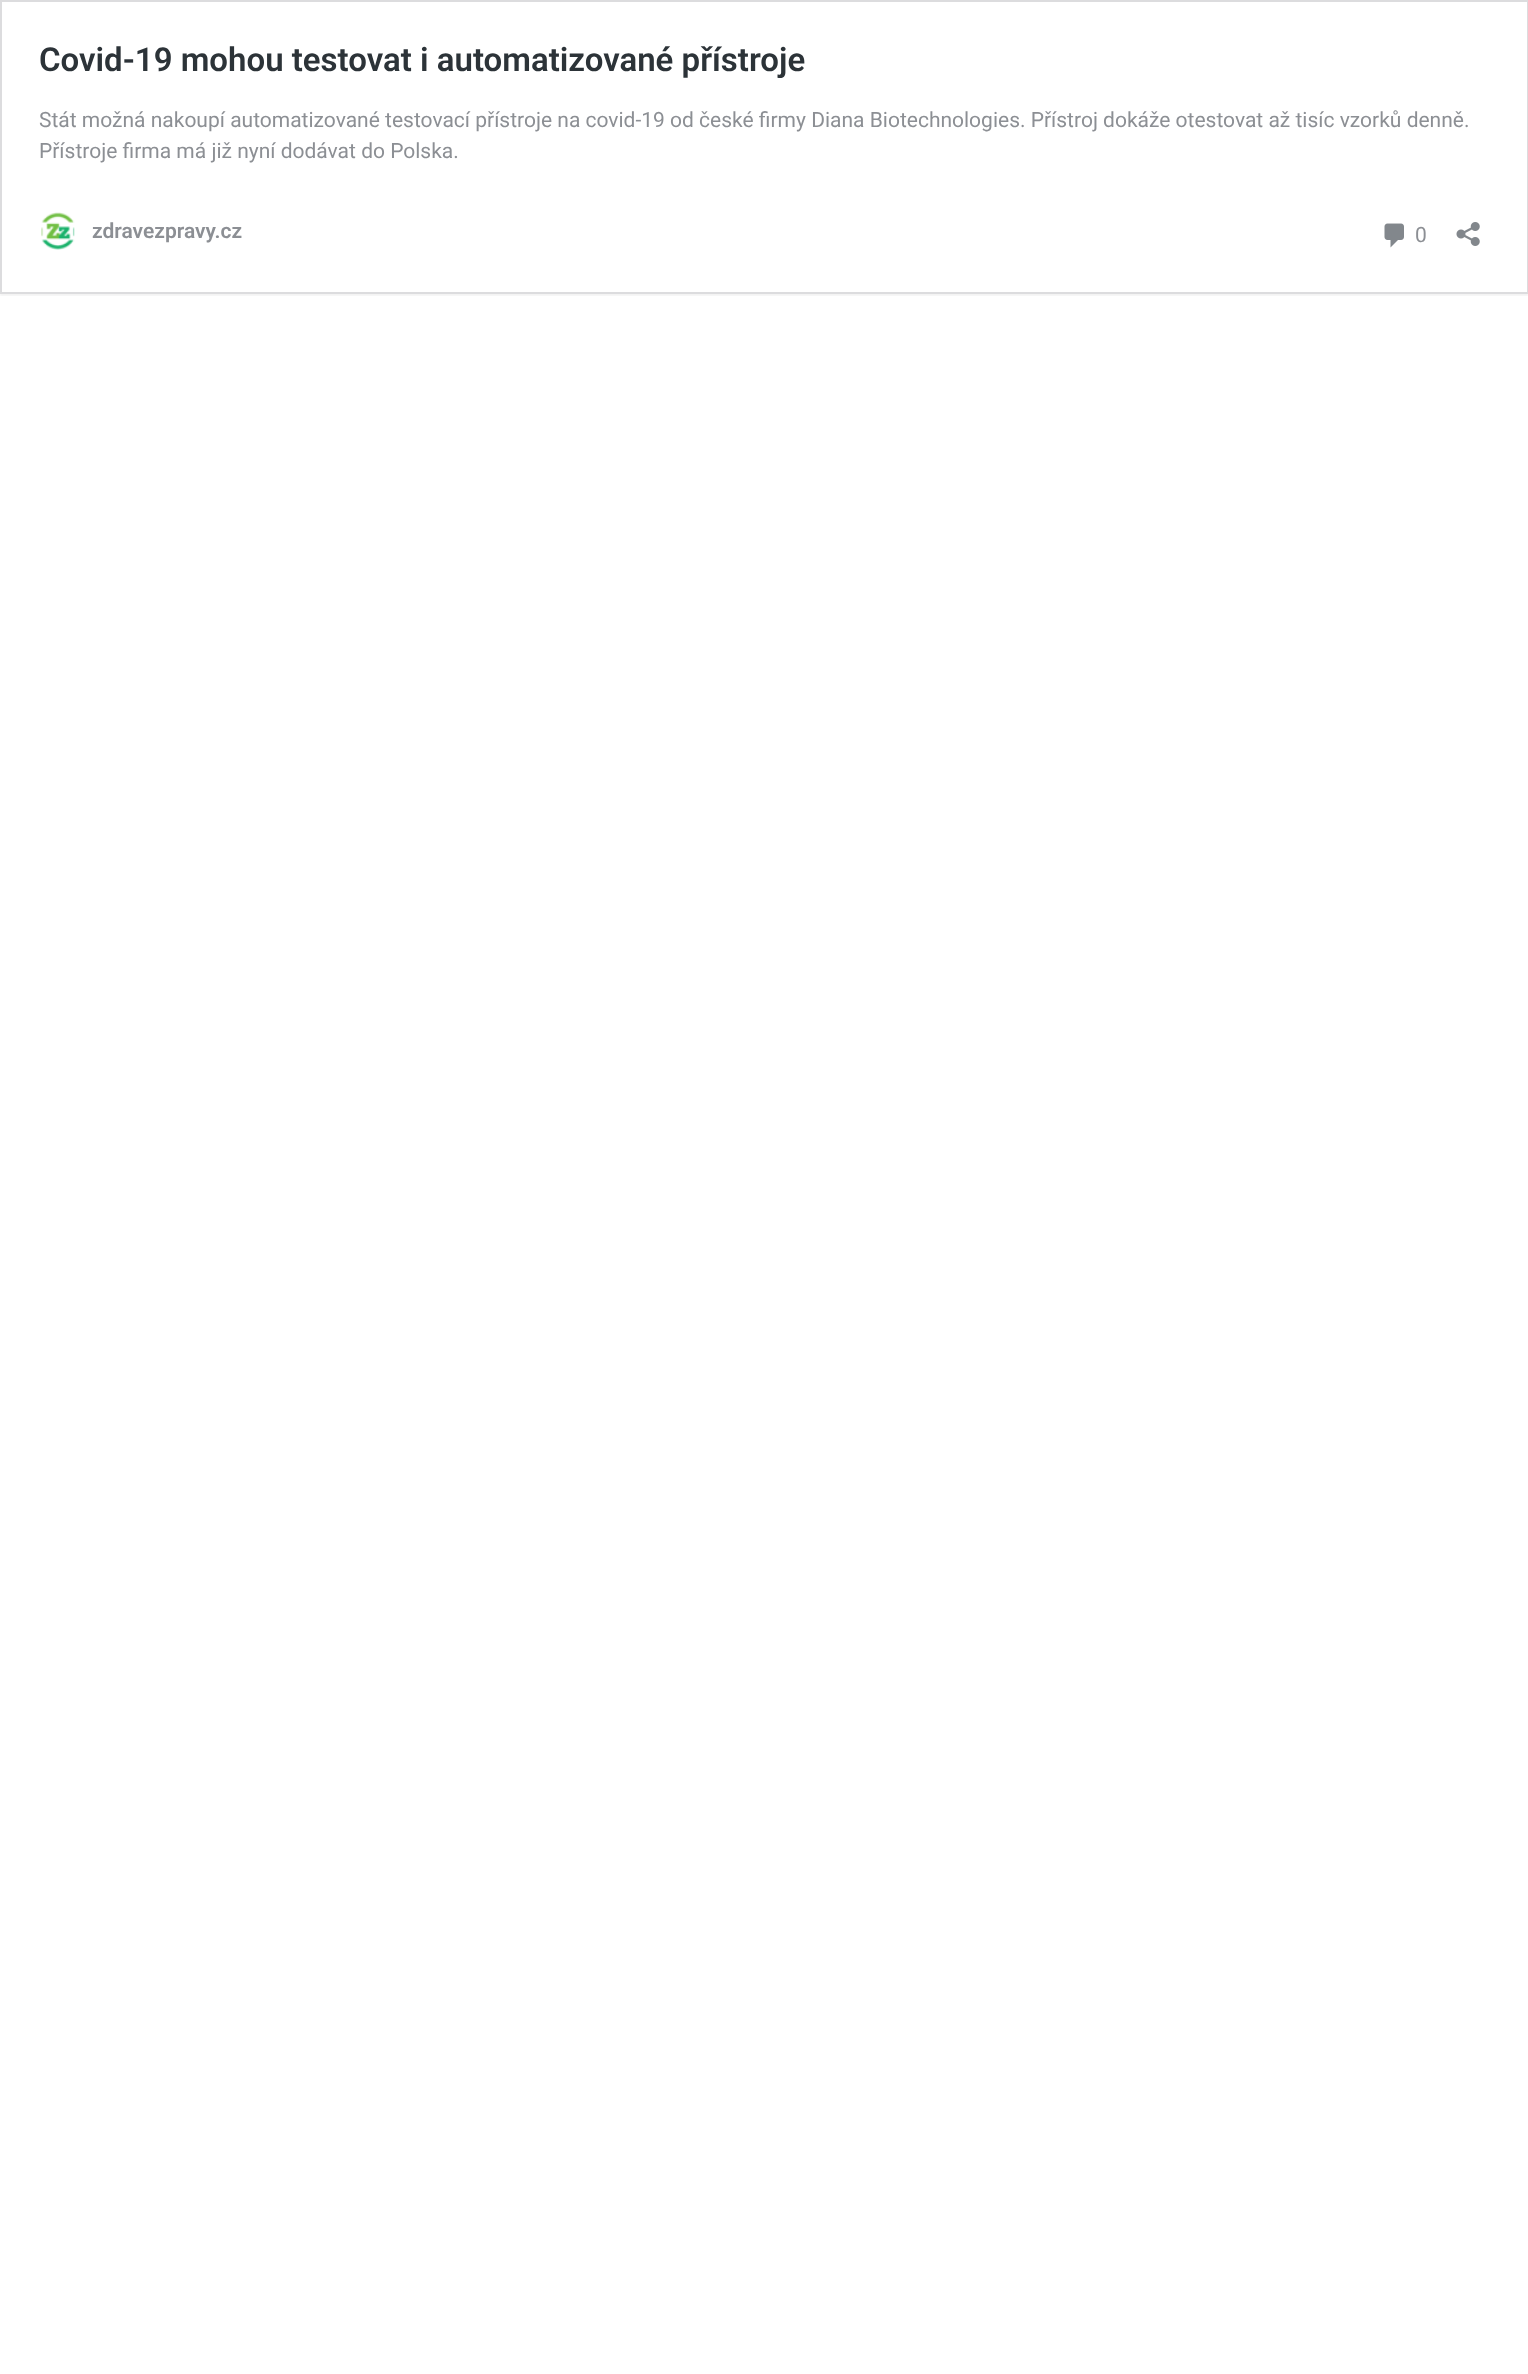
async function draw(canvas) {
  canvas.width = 1528
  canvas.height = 2374
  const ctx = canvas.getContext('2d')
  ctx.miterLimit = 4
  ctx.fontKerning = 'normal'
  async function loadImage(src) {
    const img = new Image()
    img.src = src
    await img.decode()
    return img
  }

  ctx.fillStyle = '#fff'
  ctx.fillRect(0, 0, 1528, 2374)
  ctx.save()
  ctx.beginPath()
  ctx.rect(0, 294, 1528, 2)
  ctx.clip()
  ctx.fillStyle = '#0000000d'
  ctx.filter = 'blur(1px)'
  ctx.beginPath()
  ctx.rect(0, 2, 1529, 294)
  ctx.fill()
  ctx.filter = 'none'
  ctx.restore()
  ctx.strokeStyle = '#dcdcde'
  ctx.lineWidth = 2
  ctx.strokeRect(1, 1, 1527, 292)
  ctx.font = '600 33px Roboto'
  ctx.fillStyle = '#2c3338'
  ctx.fillText('Covid-19 mohou testovat i automatizované přístroje', 39, 71)
  ctx.font = '21px Roboto'
  ctx.fillStyle = '#8c8f94'
  ctx.fillText('Stát možná nakoupí automatizované testovací přístroje na covid-19 od české firmy Diana Biotechnologies. Přístroj dokáže otestovat až tisíc vzorků denně.', 39, 127)
  ctx.fillText('Přístroje firma má již nyní dodávat do Polska.', 39, 158)
  ctx.drawImage(await loadImage('image0.png'), 41, 212, 34, 38)
  ctx.font = '600 21px Roboto'
  ctx.fillText('zdravezpravy.cz', 92, 238)
  ctx.drawImage(await loadImage('image1.png'), 1384, 223, 20, 25)
  ctx.font = '21px Roboto'
  ctx.fillText('0', 1415, 242)
  ctx.drawImage(await loadImage('image2.png'), 1456, 222, 24, 24)
}

draw(document.querySelector('canvas'))
